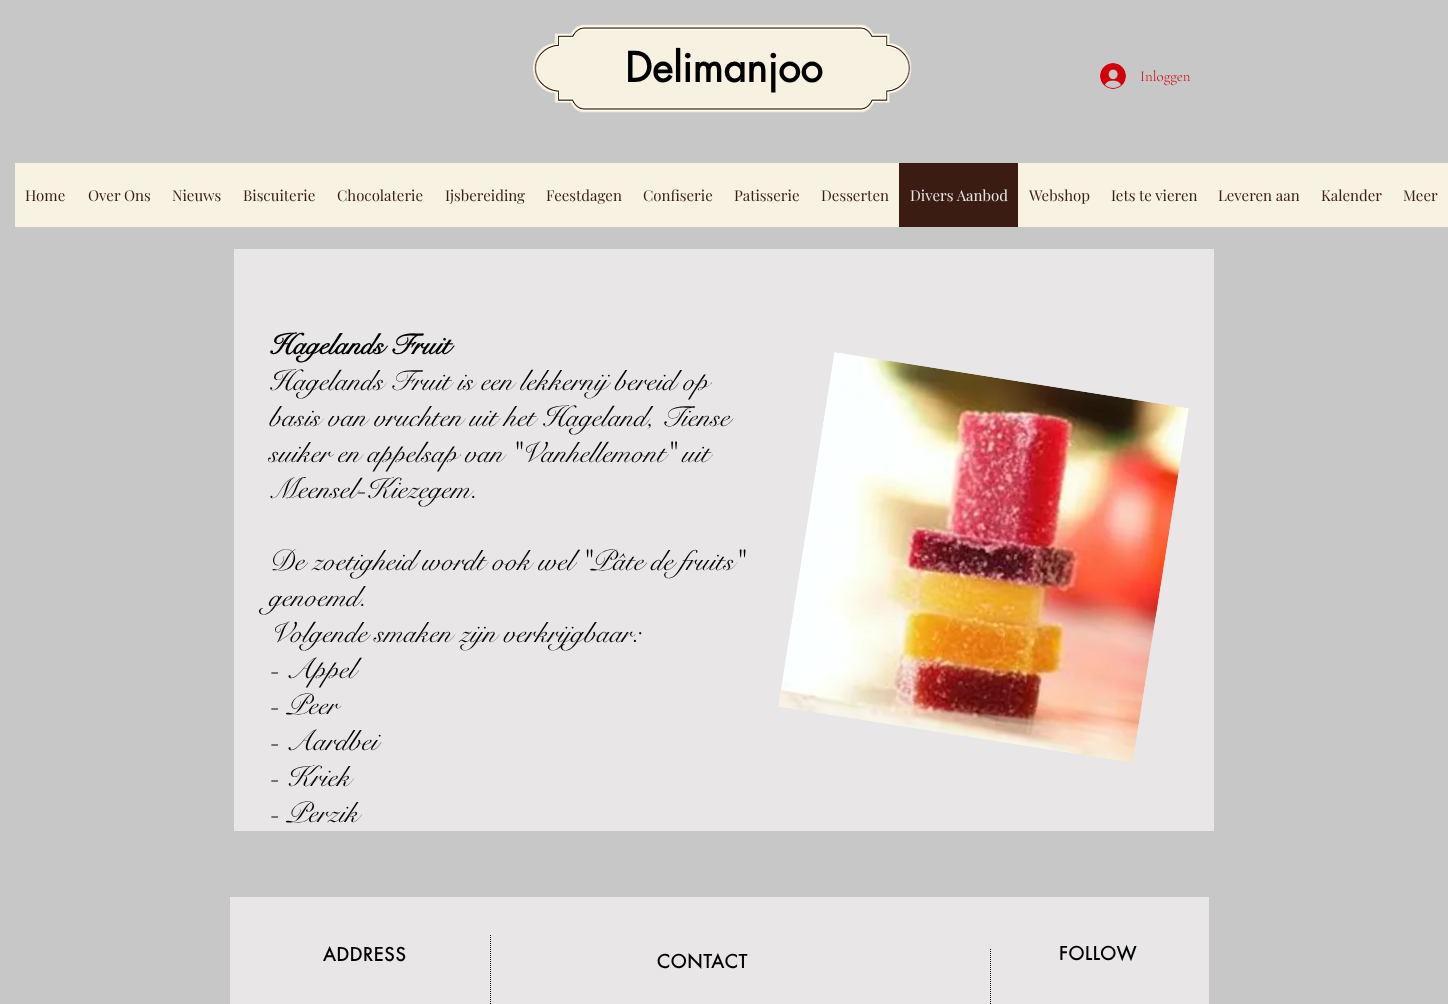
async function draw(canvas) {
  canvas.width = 1448
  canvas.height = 1004
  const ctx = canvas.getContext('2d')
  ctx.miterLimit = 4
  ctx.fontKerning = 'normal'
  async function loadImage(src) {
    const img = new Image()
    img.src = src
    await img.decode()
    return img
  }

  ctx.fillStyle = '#c7c7c7'
  ctx.fillRect(0, 0, 1448, 1004)
  ctx.drawImage(await loadImage('image0.png'), 533, 24, 379, 89)
  ctx.font = 'bold 40px futura'
  ctx.fillStyle = '#000'
  ctx.fillText('Delimanjoo', 625, 82)
  ctx.drawImage(await loadImage('image1.png'), 1100, 63, 26, 26)
  ctx.font = '300 15px Cormorant Garamond'
  ctx.fillStyle = '#d1000a'
  ctx.fillText('Inloggen', 1140, 81)
  ctx.fillStyle = '#f7f2e2'
  ctx.fillRect(15, 163, 1433, 64)
  ctx.font = '15px Playfair Display'
  ctx.fillStyle = '#3a1c13'
  ctx.fillText('Home', 25, 201)
  ctx.fillText('Over Ons', 88, 201)
  ctx.fillText('Nieuws', 172, 201)
  ctx.fillText('Biscuiterie', 243, 201)
  ctx.fillText('Chocolaterie', 337, 201)
  ctx.fillText('Ijsbereiding', 445, 201)
  ctx.fillText('Feestdagen', 546, 201)
  ctx.fillText('Confiserie', 643, 201)
  ctx.fillText('Patisserie', 734, 201)
  ctx.fillText('Desserten', 821, 201)
  ctx.fillRect(899, 163, 119, 64)
  ctx.fillStyle = '#e8e6e6'
  ctx.fillText('Divers Aanbod', 910, 201)
  ctx.fillStyle = '#3a1c13'
  ctx.fillText('Webshop', 1029, 201)
  ctx.fillText('Iets te vieren', 1111, 201)
  ctx.fillText('Leveren aan', 1218, 201)
  ctx.fillText('Kalender', 1321, 201)
  ctx.fillText('Meer', 1403, 201)
  ctx.fillStyle = '#e8e6e6'
  ctx.fillRect(234, 249, 980, 582)
  ctx.font = 'bold 29px "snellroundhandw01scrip"'
  ctx.fillStyle = '#000'
  ctx.fillText('Hagelands Fruit', 269, 354)
  ctx.font = '29px "snellroundhandw01scrip"'
  ctx.fillText('Hagelands Fruit is een lekkernij bereid op', 269, 390)
  ctx.fillText('basis van vruchten uit het Hageland, Tiense', 269, 426)
  ctx.fillText('suiker en appelsap van "Vanhellemont" uit', 269, 462)
  ctx.fillText('Meensel-Kiezegem.', 269, 498)
  ctx.fillText('De zoetigheid wordt ook wel "Pâte de fruits"', 269, 570)
  ctx.fillText('genoemd.', 269, 606)
  ctx.fillText('Volgende smaken zijn verkrijgbaar:', 269, 642)
  ctx.fillText('- Appel', 269, 678)
  ctx.fillText('- Peer', 269, 714)
  ctx.fillText('- Aardbei', 269, 750)
  ctx.fillText('- Kriek', 269, 786)
  ctx.fillText('- Perzik', 269, 822)
  ctx.drawImage(await loadImage('image2.png'), 778, 352, 411, 411)
  ctx.fillStyle = '#e8e6e6'
  ctx.fillRect(230, 897, 979, 107)
  ctx.letterSpacing = '1px'
  ctx.font = 'bold 18px futura'
  ctx.fillStyle = '#000'
  ctx.fillText('ADDRESS', 323, 961)
  ctx.beginPath()
  ctx.moveTo(490.5, 935)
  ctx.lineTo(490.5, 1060)
  ctx.strokeStyle = '#000'
  ctx.setLineDash([1, 1])
  ctx.stroke()
  ctx.fillText('CONTACT', 657, 968)
  ctx.beginPath()
  ctx.moveTo(990.5, 949)
  ctx.lineTo(990.5, 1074)
  ctx.stroke()
  ctx.fillText('FOLLOW', 1059, 960)
}

draw(document.querySelector('canvas'))
